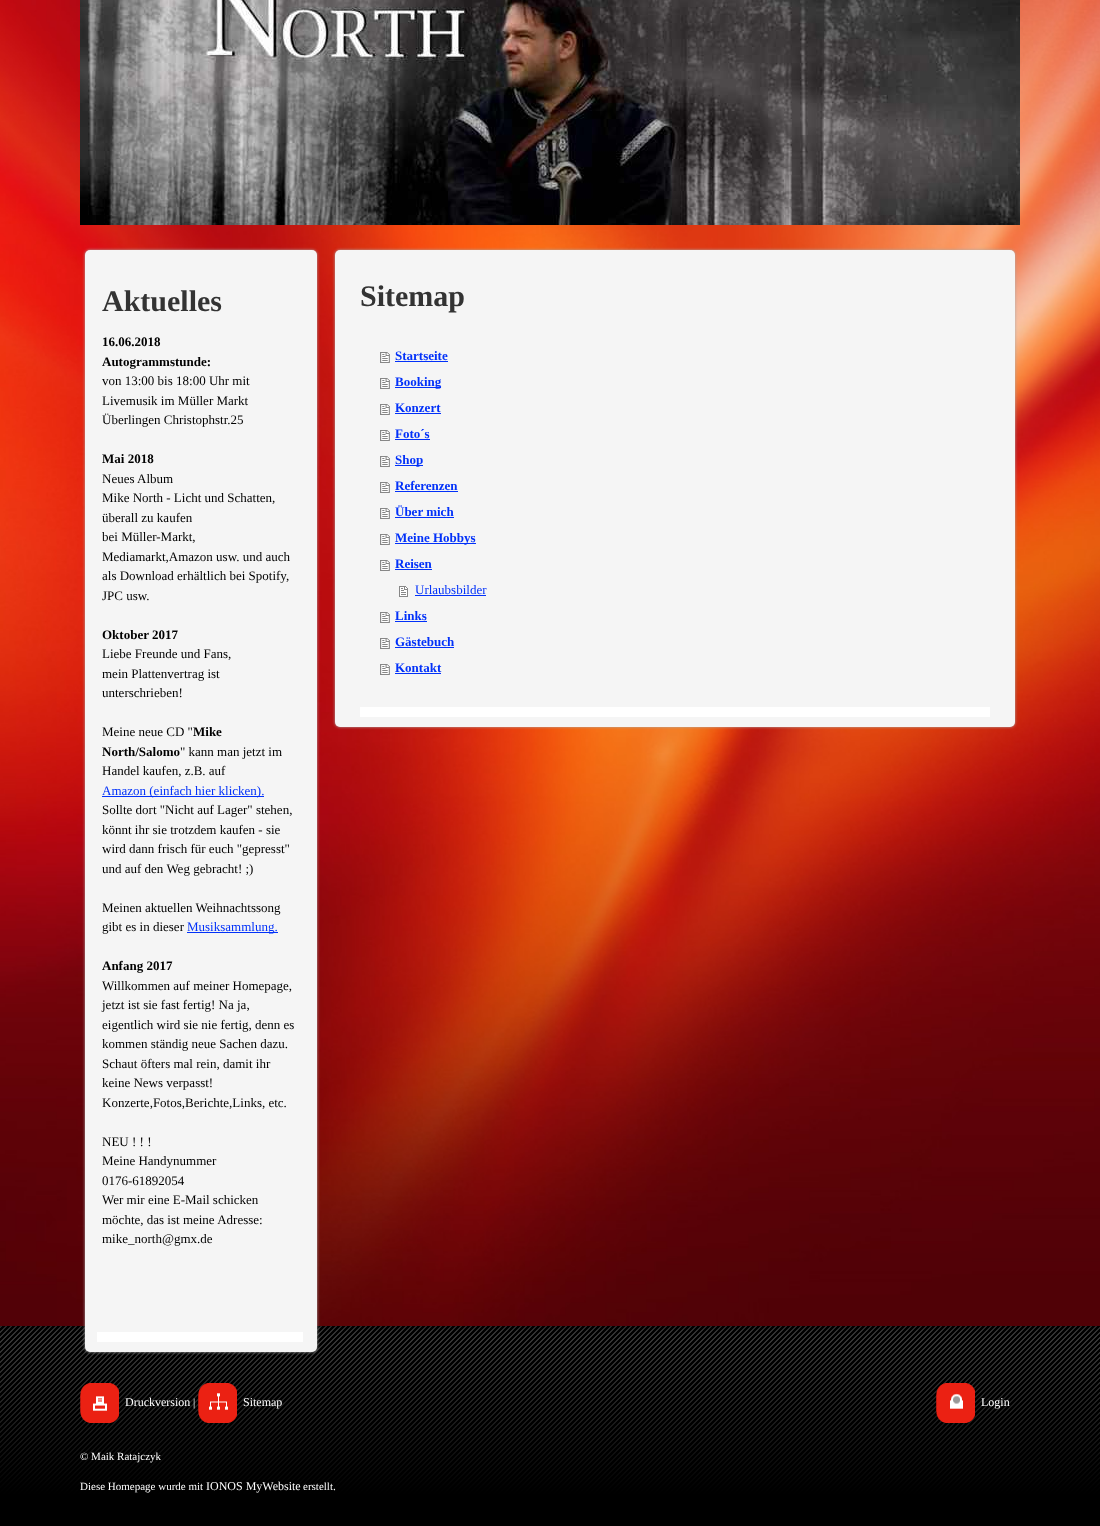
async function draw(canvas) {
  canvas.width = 1100
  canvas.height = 1526
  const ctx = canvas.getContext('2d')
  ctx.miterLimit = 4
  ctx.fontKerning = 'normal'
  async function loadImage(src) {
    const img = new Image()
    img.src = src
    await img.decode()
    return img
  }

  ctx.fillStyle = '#fff'
  ctx.fillRect(0, 0, 1100, 1526)
  ctx.drawImage(await loadImage('image0.png'), 0, 0, 1100, 1326)
  ctx.drawImage(await loadImage('image1.png'), 80, 0, 940, 225)
  ctx.drawImage(await loadImage('image4.png'), 0, 1326, 1100, 200)
  ctx.fillStyle = '#aaa'
  ctx.filter = 'blur(1.5px)'
  ctx.beginPath()
  ctx.roundRect(85, 250, 232, 1102, 5)
  ctx.fill()
  ctx.filter = 'none'
  ctx.fillStyle = '#f5f5f5'
  ctx.beginPath()
  ctx.roundRect(85, 250, 232, 1102, 5)
  ctx.fill()
  ctx.fillStyle = '#fff'
  ctx.fillRect(97, 1332, 206, 10)
  ctx.font = 'bold 30px Liberation Serif'
  ctx.fillStyle = '#333'
  ctx.fillText('Aktuelles', 102, 311)
  ctx.font = 'bold 13px Liberation Serif'
  ctx.fillStyle = '#000'
  ctx.fillText('16.06.2018', 102, 346)
  ctx.fillText('Autogrammstunde:', 102, 366)
  ctx.font = '13px Liberation Serif'
  ctx.fillText('von 13:00 bis 18:00 Uhr mit', 102, 385)
  ctx.fillText('Livemusik im Müller Markt', 102, 405)
  ctx.fillText('Überlingen Christophstr.25', 102, 424)
  ctx.font = 'bold 13px Liberation Serif'
  ctx.fillText('Mai 2018', 102, 463)
  ctx.font = '13px Liberation Serif'
  ctx.fillText('Neues Album', 102, 483)
  ctx.fillText('Mike North - Licht und Schatten,', 102, 502)
  ctx.fillText('überall zu kaufen', 102, 522)
  ctx.fillText('bei Müller-Markt,', 102, 541)
  ctx.fillText('Mediamarkt,Amazon usw. und auch', 102, 561)
  ctx.fillText('als Download erhältlich bei Spotify,', 102, 580)
  ctx.fillText('JPC usw.', 102, 600)
  ctx.font = 'bold 13px Liberation Serif'
  ctx.fillText('Oktober 2017', 102, 639)
  ctx.font = '13px Liberation Serif'
  ctx.fillText('Liebe Freunde und Fans,', 102, 658)
  ctx.fillText('mein Plattenvertrag ist', 102, 678)
  ctx.fillText('unterschrieben!', 102, 697)
  ctx.fillText('Meine neue CD "', 102, 736)
  ctx.font = 'bold 13px Liberation Serif'
  ctx.fillText('Mike', 193, 736)
  ctx.fillText('North/Salomo', 102, 756)
  ctx.font = '13px Liberation Serif'
  ctx.fillText('" kann man jetzt im', 180, 756)
  ctx.fillText('Handel kaufen, z.B. auf', 102, 775)
  ctx.fillStyle = '#0231f9'
  ctx.fillRect(102, 796, 162, 1)
  ctx.fillText('Amazon (einfach hier klicken).', 102, 795)
  ctx.fillStyle = '#000'
  ctx.fillText('Sollte dort "Nicht auf Lager" stehen,', 102, 814)
  ctx.fillText('könnt ihr sie trotzdem kaufen - sie', 102, 834)
  ctx.fillText('wird dann frisch für euch "gepresst"', 102, 853)
  ctx.fillText('und auf den Weg gebracht! ;)', 102, 873)
  ctx.fillText('Meinen aktuellen Weihnachtssong', 102, 912)
  ctx.fillText('gibt es in dieser', 102, 931)
  ctx.fillStyle = '#0231f9'
  ctx.fillRect(187, 932, 91, 1)
  ctx.fillText('Musiksammlung.', 187, 931)
  ctx.font = 'bold 13px Liberation Serif'
  ctx.fillStyle = '#000'
  ctx.fillText('Anfang 2017', 102, 970)
  ctx.font = '13px Liberation Serif'
  ctx.fillText('Willkommen auf meiner Homepage,', 102, 990)
  ctx.fillText('jetzt ist sie fast fertig! Na ja,', 102, 1009)
  ctx.fillText('eigentlich wird sie nie fertig, denn es', 102, 1029)
  ctx.fillText('kommen ständig neue Sachen dazu.', 102, 1048)
  ctx.fillText('Schaut öfters mal rein, damit ihr', 102, 1068)
  ctx.fillText('keine News verpasst!', 102, 1087)
  ctx.fillText('Konzerte,Fotos,Berichte,Links, etc.', 102, 1107)
  ctx.fillText('NEU ! ! !', 102, 1146)
  ctx.fillText('Meine Handynummer', 102, 1165)
  ctx.fillText('0176-61892054', 102, 1185)
  ctx.fillText('Wer mir eine E-Mail schicken', 102, 1204)
  ctx.fillText('möchte, das ist meine Adresse:', 102, 1224)
  ctx.fillText('mike_north@gmx.de', 102, 1243)
  ctx.fillStyle = '#aaa'
  ctx.filter = 'blur(1.5px)'
  ctx.beginPath()
  ctx.roundRect(335, 250, 680, 477, 5)
  ctx.fill()
  ctx.filter = 'none'
  ctx.fillStyle = '#f5f5f5'
  ctx.beginPath()
  ctx.roundRect(335, 250, 680, 477, 5)
  ctx.fill()
  ctx.fillStyle = '#fff'
  ctx.fillRect(360, 707, 630, 10)
  ctx.font = 'bold 30px Liberation Serif'
  ctx.fillStyle = '#333'
  ctx.fillText('Sitemap', 360, 306)
  ctx.drawImage(await loadImage('image2.png'), 380, 352, 10, 11)
  ctx.font = 'bold 13px Liberation Serif'
  ctx.fillStyle = '#0231f9'
  ctx.fillText('Startseite', 395, 360)
  ctx.fillRect(395, 361, 53, 1)
  ctx.drawImage(await loadImage('image2.png'), 380, 378, 10, 11)
  ctx.fillRect(395, 387, 46, 1)
  ctx.fillText('Booking', 395, 386)
  ctx.drawImage(await loadImage('image2.png'), 380, 404, 10, 11)
  ctx.fillText('Konzert', 395, 412)
  ctx.fillRect(395, 413, 46, 1)
  ctx.drawImage(await loadImage('image2.png'), 380, 430, 10, 11)
  ctx.fillText('Foto´s', 395, 438)
  ctx.fillRect(395, 439, 35, 1)
  ctx.drawImage(await loadImage('image2.png'), 380, 456, 10, 11)
  ctx.fillRect(395, 465, 28, 1)
  ctx.fillText('Shop', 395, 464)
  ctx.drawImage(await loadImage('image2.png'), 380, 482, 10, 11)
  ctx.fillText('Referenzen', 395, 490)
  ctx.fillRect(395, 491, 63, 1)
  ctx.drawImage(await loadImage('image2.png'), 380, 508, 10, 11)
  ctx.fillText('Über mich', 395, 516)
  ctx.fillRect(395, 517, 59, 1)
  ctx.drawImage(await loadImage('image2.png'), 380, 534, 10, 11)
  ctx.fillRect(395, 543, 81, 1)
  ctx.fillText('Meine Hobbys', 395, 542)
  ctx.drawImage(await loadImage('image2.png'), 380, 560, 10, 11)
  ctx.fillText('Reisen', 395, 568)
  ctx.fillRect(395, 569, 37, 1)
  ctx.drawImage(await loadImage('image3.png'), 399, 586, 9, 11)
  ctx.font = '13px Liberation Serif'
  ctx.fillText('Urlaubsbilder', 415, 594)
  ctx.fillRect(415, 595, 71, 1)
  ctx.drawImage(await loadImage('image2.png'), 380, 612, 10, 11)
  ctx.font = 'bold 13px Liberation Serif'
  ctx.fillText('Links', 395, 620)
  ctx.fillRect(395, 621, 32, 1)
  ctx.drawImage(await loadImage('image2.png'), 380, 638, 10, 11)
  ctx.fillText('Gästebuch', 395, 646)
  ctx.fillRect(395, 647, 59, 1)
  ctx.drawImage(await loadImage('image2.png'), 380, 664, 10, 11)
  ctx.fillText('Kontakt', 395, 672)
  ctx.fillRect(395, 673, 46, 1)
  ctx.drawImage(await loadImage('image5.png'), 80, 1383, 39, 40)
  ctx.font = '12px Liberation Serif'
  ctx.fillStyle = '#fff'
  ctx.fillText('Druckversion', 125, 1406)
  ctx.font = '11px Liberation Serif'
  ctx.fillText('|', 193, 1406)
  ctx.drawImage(await loadImage('image6.png'), 198, 1383, 39, 40)
  ctx.font = '12px Liberation Serif'
  ctx.fillText('Sitemap', 243, 1406)
  ctx.font = '11px Liberation Serif'
  ctx.fillText('© Maik Ratajczyk', 80, 1460)
  ctx.fillText('Diese Homepage wurde mit', 80, 1490)
  ctx.font = '12px Liberation Serif'
  ctx.fillText('IONOS MyWebsite', 206, 1490)
  ctx.font = '11px Liberation Serif'
  ctx.fillText('erstellt.', 303, 1490)
  ctx.drawImage(await loadImage('image7.png'), 936, 1383, 39, 40)
  ctx.font = '12px Liberation Serif'
  ctx.fillText('Login', 981, 1406)
}

draw(document.querySelector('canvas'))
